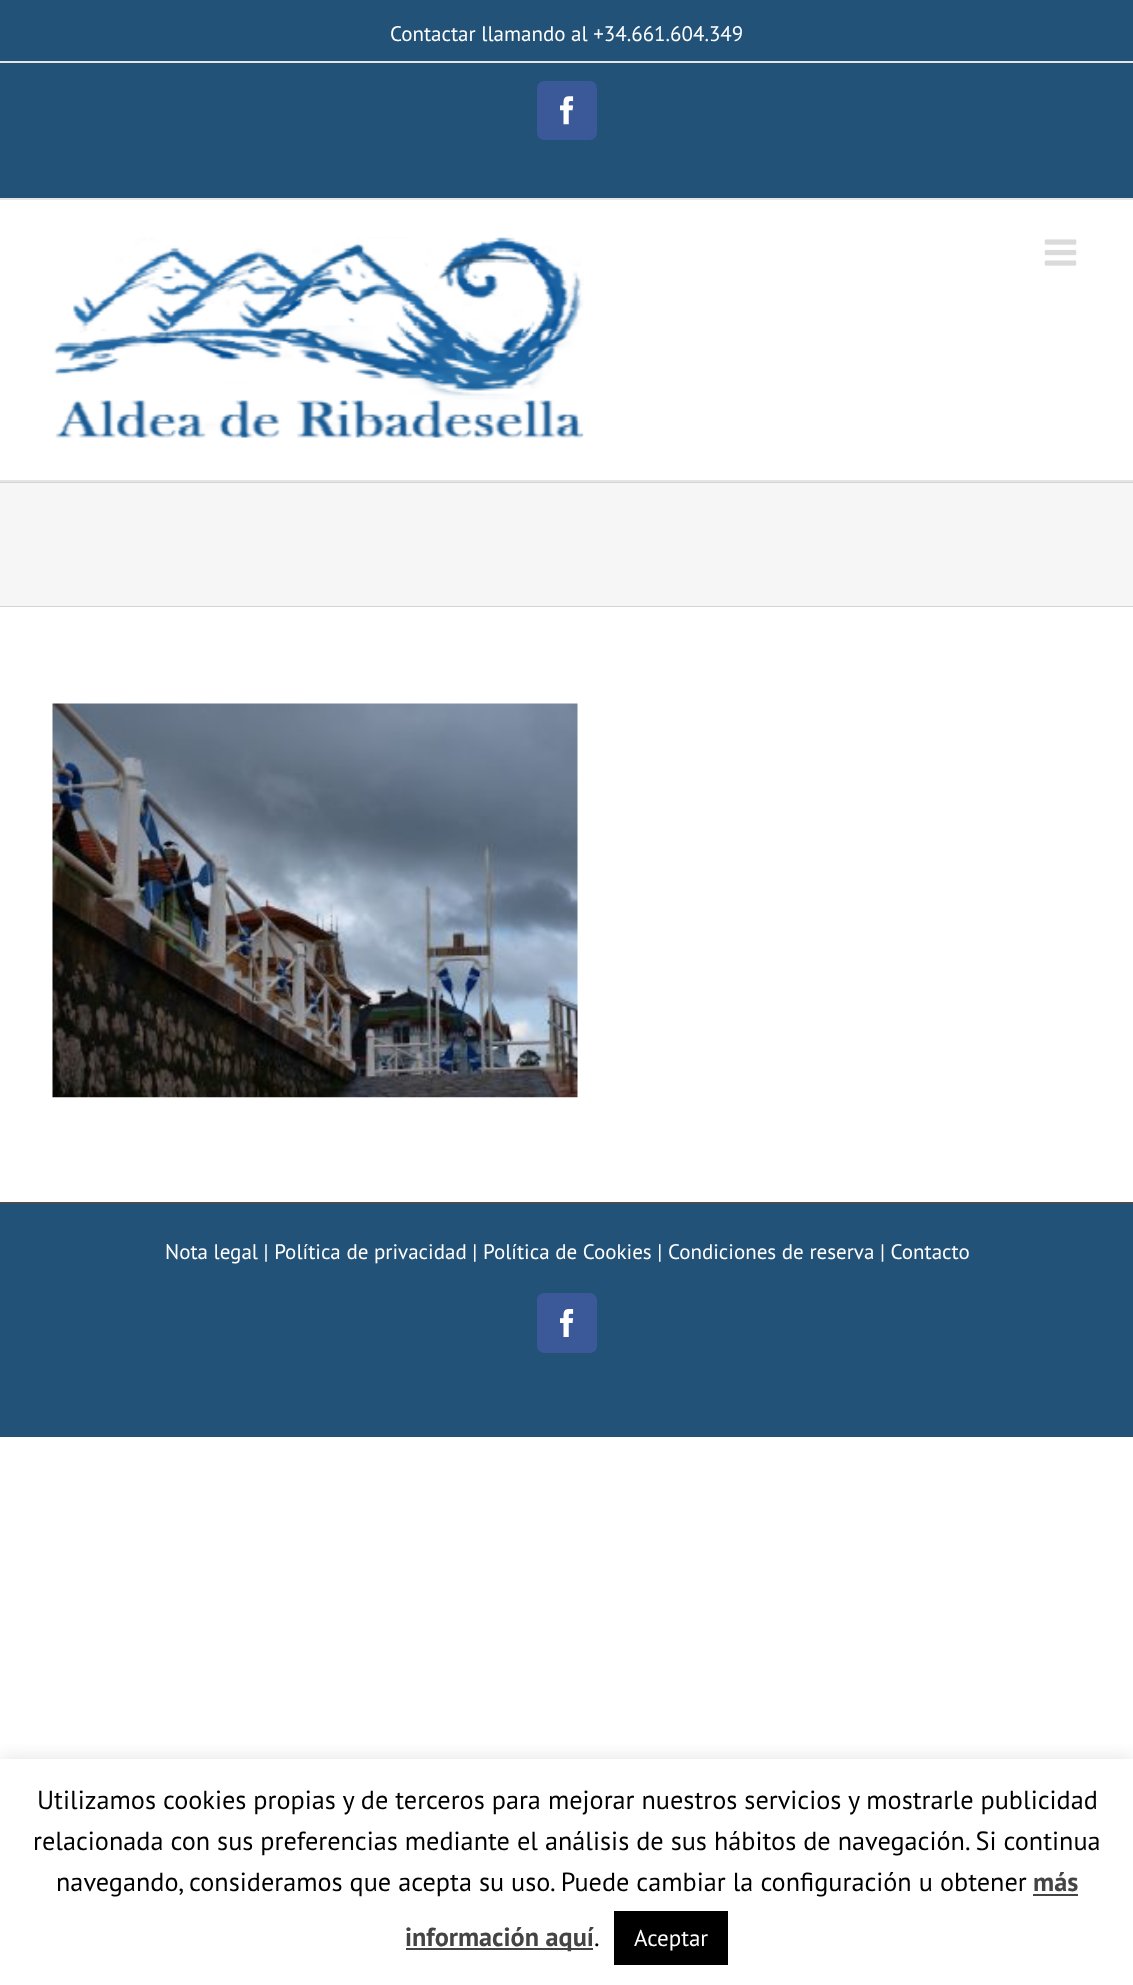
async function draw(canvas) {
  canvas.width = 1133
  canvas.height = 1985
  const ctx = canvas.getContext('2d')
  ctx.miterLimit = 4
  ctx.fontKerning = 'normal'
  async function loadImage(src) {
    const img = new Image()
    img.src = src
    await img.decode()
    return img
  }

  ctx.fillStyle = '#fff'
  ctx.fillRect(0, 0, 1133, 1985)
  ctx.fillStyle = '#235278'
  ctx.fillRect(0, 0, 1133, 198)
  ctx.fillStyle = '#e5e5e5'
  ctx.fillRect(0, 198, 1133, 2)
  ctx.fillRect(0, 61, 1133, 2)
  ctx.font = '21px PT Sans'
  ctx.fillStyle = '#fff'
  ctx.fillText('Contactar llamando al +34.661.604.349', 390, 41)
  ctx.fillStyle = '#3b5998'
  ctx.beginPath()
  ctx.roundRect(538, 82, 58, 57, 6)
  ctx.fill()
  ctx.strokeStyle = '#3b5998'
  ctx.lineWidth = 2
  ctx.stroke()
  ctx.drawImage(await loadImage('image0.png'), 560, 96, 14, 29)
  ctx.fillStyle = '#e5e5e5'
  ctx.fillRect(0, 480, 1133, 2)
  ctx.drawImage(await loadImage('image1.png'), 54, 237, 530, 201)
  ctx.drawImage(await loadImage('image2.png'), 1044, 239, 33, 27)
  ctx.fillStyle = '#f6f6f6'
  ctx.fillRect(0, 483, 1133, 123)
  ctx.fillStyle = '#d2d3d4'
  ctx.fillRect(0, 482, 1133, 1)
  ctx.fillRect(0, 606, 1133, 1)
  ctx.drawImage(await loadImage('image3.png'), 52, 703, 526, 395)
  ctx.fillStyle = '#235278'
  ctx.fillRect(0, 1204, 1133, 233)
  ctx.fillStyle = '#4b4c4d'
  ctx.fillRect(0, 1202, 1133, 2)
  ctx.fillStyle = '#fff'
  ctx.fillText('Nota legal | Política de privacidad | Política de Cookies | Condiciones de reserva | Contacto', 165, 1259)
  ctx.fillStyle = '#3b5998'
  ctx.beginPath()
  ctx.roundRect(538, 1294, 58, 58, 6)
  ctx.fill()
  ctx.stroke()
  ctx.drawImage(await loadImage('image4.png'), 560, 1309, 14, 28)
  ctx.save()
  ctx.beginPath()
  ctx.rect(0, 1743, 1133, 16)
  ctx.clip()
  ctx.fillStyle = '#acabab4d'
  ctx.filter = 'blur(9px)'
  ctx.beginPath()
  ctx.rect(0, 1757, 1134, 228)
  ctx.fill()
  ctx.filter = 'none'
  ctx.restore()
  ctx.font = '26.25px PT Sans'
  ctx.fillStyle = '#000'
  ctx.fillText('Utilizamos cookies propias y de terceros para mejorar nuestros servicios y mostrarle publicidad', 37, 1809)
  ctx.fillText('relacionada con sus preferencias mediante el análisis de sus hábitos de navegación. Si continua', 33, 1850)
  ctx.fillText('navegando, consideramos que acepta su uso. Puede cambiar la configuración u obtener', 56, 1891)
  ctx.font = 'bold 26.25px PT Sans'
  ctx.fillStyle = '#444'
  ctx.fillText('más', 1033, 1891)
  ctx.fillRect(1033, 1894, 45, 2)
  ctx.fillRect(406, 1948, 187, 2)
  ctx.fillText('información aquí', 405, 1946)
  ctx.font = '26.25px PT Sans'
  ctx.fillStyle = '#000'
  ctx.fillText('.', 594, 1946)
  ctx.fillRect(614, 1911, 114, 54)
  ctx.font = '23px PT Sans'
  ctx.fillStyle = '#fff'
  ctx.fillText('Aceptar', 634, 1946)
}

draw(document.querySelector('canvas'))
